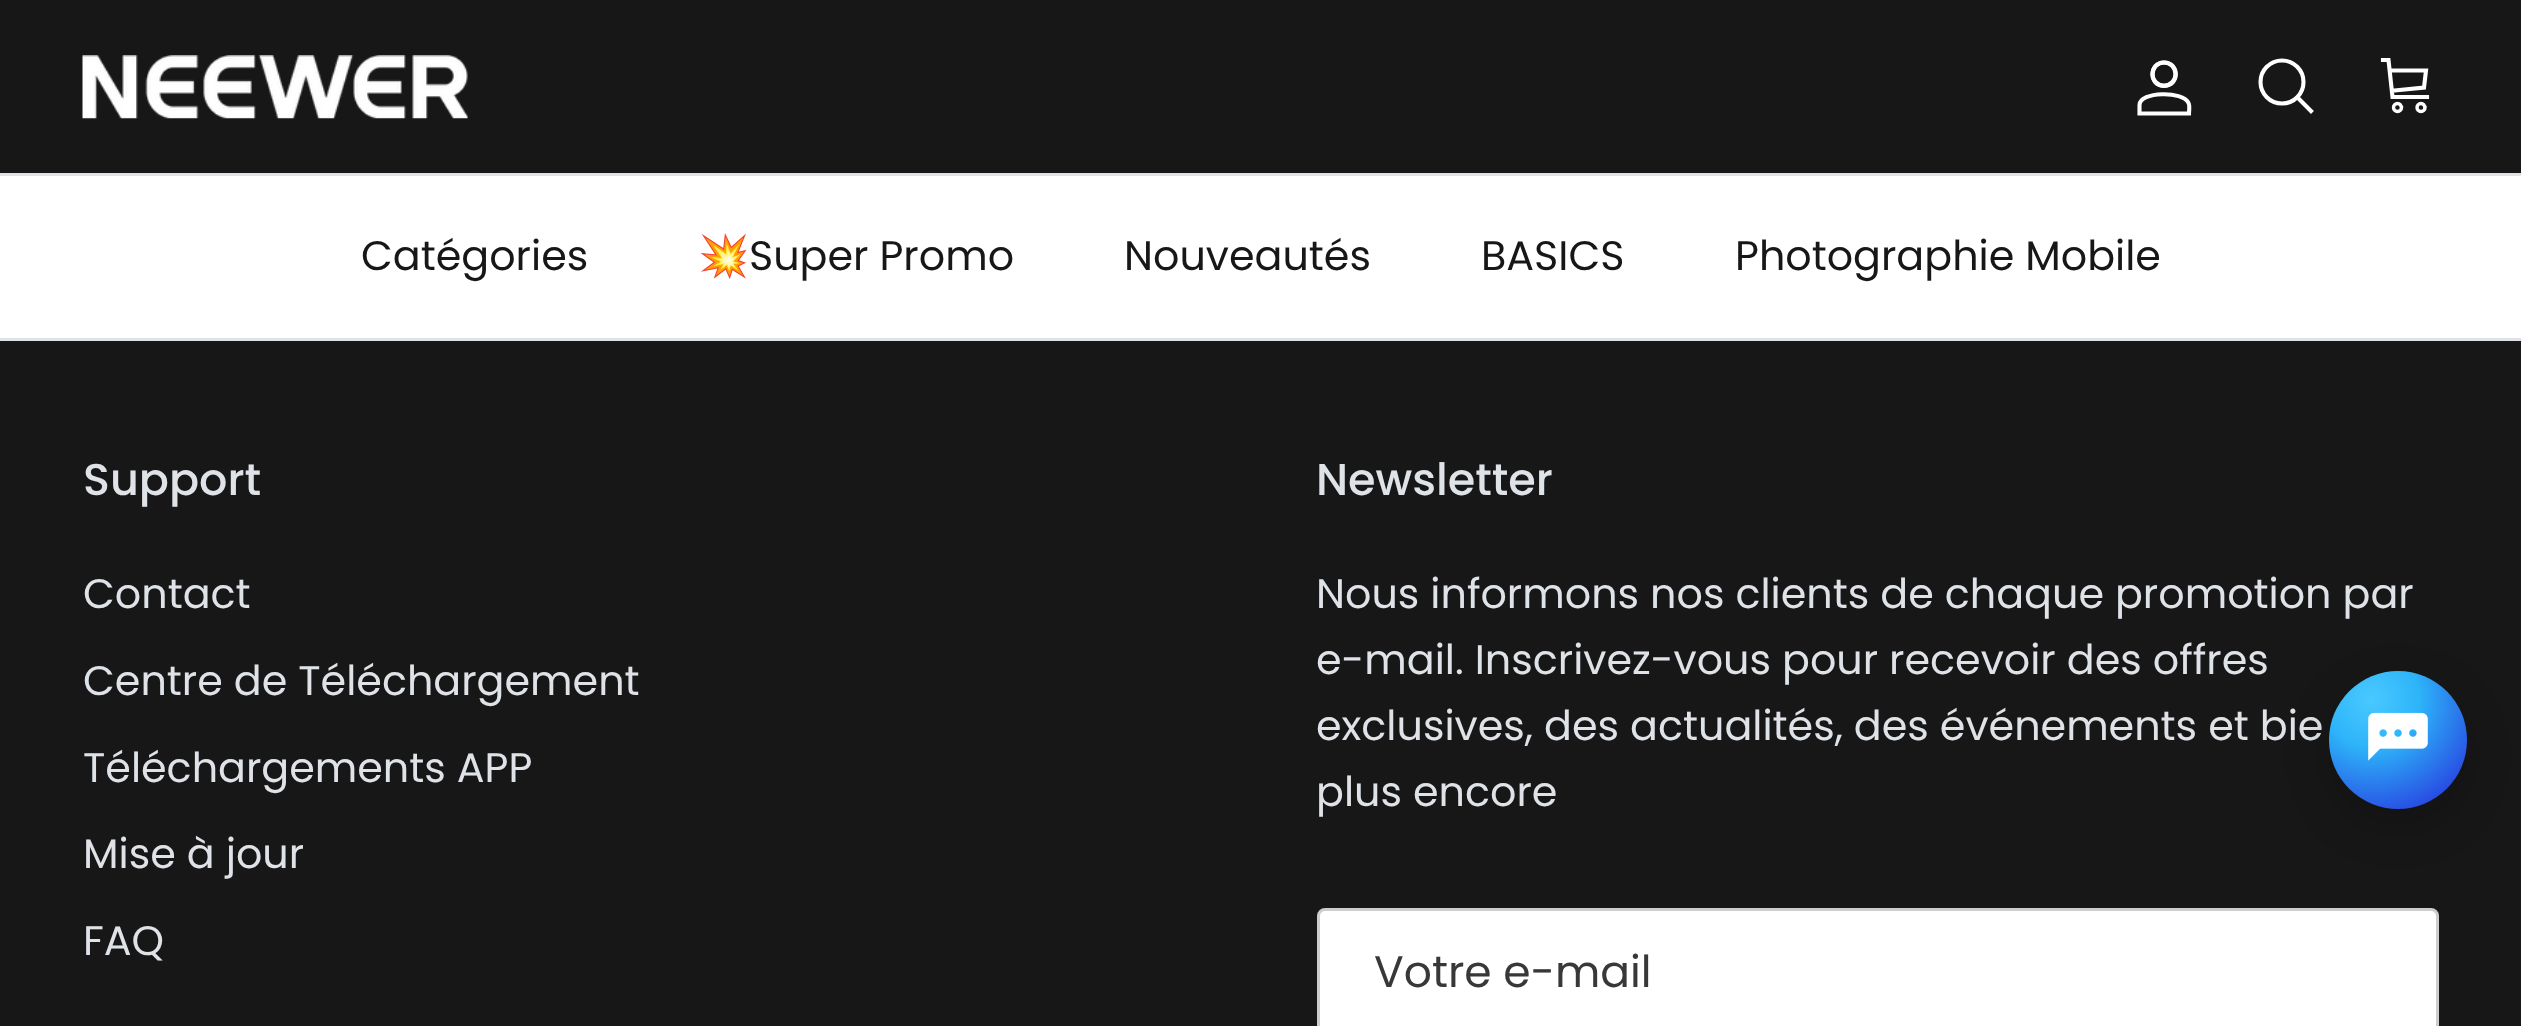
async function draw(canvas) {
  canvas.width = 2521
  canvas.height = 1026
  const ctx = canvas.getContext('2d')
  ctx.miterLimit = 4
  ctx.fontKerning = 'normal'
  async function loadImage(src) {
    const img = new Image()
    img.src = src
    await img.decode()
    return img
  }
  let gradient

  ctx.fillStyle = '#171717'
  ctx.fillRect(0, 0, 2521, 1026)
  ctx.fillStyle = '#dfe3e8'
  ctx.fillRect(0, 173, 2521, 3)
  ctx.drawImage(await loadImage('image0.png'), 82, 55, 386, 64)
  ctx.fillStyle = '#fff'
  ctx.beginPath()
  ctx.moveTo(2164, 60.5)
  ctx.bezierCurveTo(2182.5, 60.5, 2182.5, 88, 2164, 88)
  ctx.bezierCurveTo(2146, 88, 2146, 60.5, 2164, 60.5)
  ctx.closePath()
  ctx.moveTo(2164, 64.5)
  ctx.bezierCurveTo(2151.5, 64.5, 2151.5, 84, 2164, 84)
  ctx.bezierCurveTo(2177, 84, 2177, 64.5, 2164, 64.5)
  ctx.closePath()
  ctx.fill('evenodd')
  ctx.beginPath()
  ctx.arc(2164, 74, 11.5, 0, 2 * Math.PI)
  ctx.strokeStyle = '#fff'
  ctx.lineWidth = 4.1
  ctx.stroke()
  ctx.beginPath()
  ctx.moveTo(2139.5, 105)
  ctx.bezierCurveTo(2139.5, 91.5, 2183, 90.5, 2188.5, 103)
  ctx.bezierCurveTo(2190, 105.5, 2189, 110.5, 2189, 113.5)
  ctx.lineTo(2139.5, 113.5)
  ctx.closePath()
  ctx.stroke()
  ctx.beginPath()
  ctx.arc(2282, 82, 21.5, 0, 2 * Math.PI)
  ctx.stroke()
  ctx.beginPath()
  ctx.moveTo(2299, 99)
  ctx.lineTo(2311, 111)
  ctx.lineCap = 'square'
  ctx.stroke()
  ctx.beginPath()
  ctx.moveTo(2383, 60)
  ctx.lineTo(2388.5, 60)
  ctx.lineTo(2392.5, 97)
  ctx.lineTo(2427, 97)
  ctx.moveTo(2390.5, 70.5)
  ctx.lineTo(2426, 70.5)
  ctx.lineTo(2424, 87.5)
  ctx.lineTo(2394, 90.5)
  ctx.stroke()
  ctx.beginPath()
  ctx.arc(2397.5, 107.5, 4, 0, 2 * Math.PI)
  ctx.lineWidth = 3.4
  ctx.stroke()
  ctx.beginPath()
  ctx.arc(2421, 107.5, 4, 0, 2 * Math.PI)
  ctx.stroke()
  ctx.fillStyle = '#dfe3e8'
  ctx.fillRect(0, 338, 2521, 3)
  ctx.fillStyle = '#fff'
  ctx.fillRect(0, 176, 2521, 162)
  ctx.font = '41.25px Poppins'
  ctx.fillStyle = '#171717'
  ctx.fillText('Catégories', 361, 270)
  ctx.font = '41.25px Noto Color Emoji'
  ctx.fillText('💥', 698, 270)
  ctx.font = '41.25px Poppins'
  ctx.fillText('Super Promo', 749, 270)
  ctx.fillText('Nouveautés', 1124, 270)
  ctx.fillText('BASICS', 1481, 270)
  ctx.fillText('Photographie Mobile', 1735, 270)
  ctx.font = '500 44.5px Poppins'
  ctx.fillStyle = '#dfe3e8'
  ctx.fillText('Support', 83, 495)
  ctx.font = '41.25px Poppins'
  ctx.fillText('Contact', 83, 608)
  ctx.fillText('Centre de Téléchargement', 83, 695)
  ctx.fillText('Téléchargements APP', 83, 782)
  ctx.fillText('Mise à jour', 83, 868)
  ctx.fillText('FAQ', 83, 955)
  ctx.font = '500 44.5px Poppins'
  ctx.fillText('Newsletter', 1316, 495)
  ctx.font = '41.25px Poppins'
  ctx.fillText('Nous informons nos clients de chaque promotion par', 1316, 608)
  ctx.fillText('e-mail. Inscrivez-vous pour recevoir des offres', 1316, 674)
  ctx.fillText('exclusives, des actualités, des événements et bie', 1316, 740)
  ctx.fillText('plus encore', 1316, 806)
  ctx.fillStyle = '#fff'
  ctx.beginPath()
  ctx.roundRect(1318.5, 909.5, 1119, 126, 6.5)
  ctx.fill()
  ctx.strokeStyle = '#cecdcd'
  ctx.lineWidth = 3
  ctx.stroke()
  ctx.font = '44px Poppins'
  ctx.fillStyle = '#393838'
  ctx.fillText('Votre e-mail', 1374, 987)
  ctx.fillStyle = '#00000033'
  ctx.filter = 'blur(22px)'
  ctx.beginPath()
  ctx.roundRect(2329, 688, 138, 137, 68.5)
  ctx.fill()
  ctx.filter = 'none'
  gradient = ctx.createRadialGradient(2371, 699, 0, 2371, 699, 138)
  gradient.addColorStop(0, '#4ac9ff')
  gradient.addColorStop(0.35, '#2db4f9')
  gradient.addColorStop(1, '#272edc')
  ctx.fillStyle = gradient
  ctx.beginPath()
  ctx.arc(2398, 740, 69, 0, 2 * Math.PI)
  ctx.fill()
  ctx.drawImage(await loadImage('image1.png'), 2368, 712, 60, 49)
}

draw(document.querySelector('canvas'))
